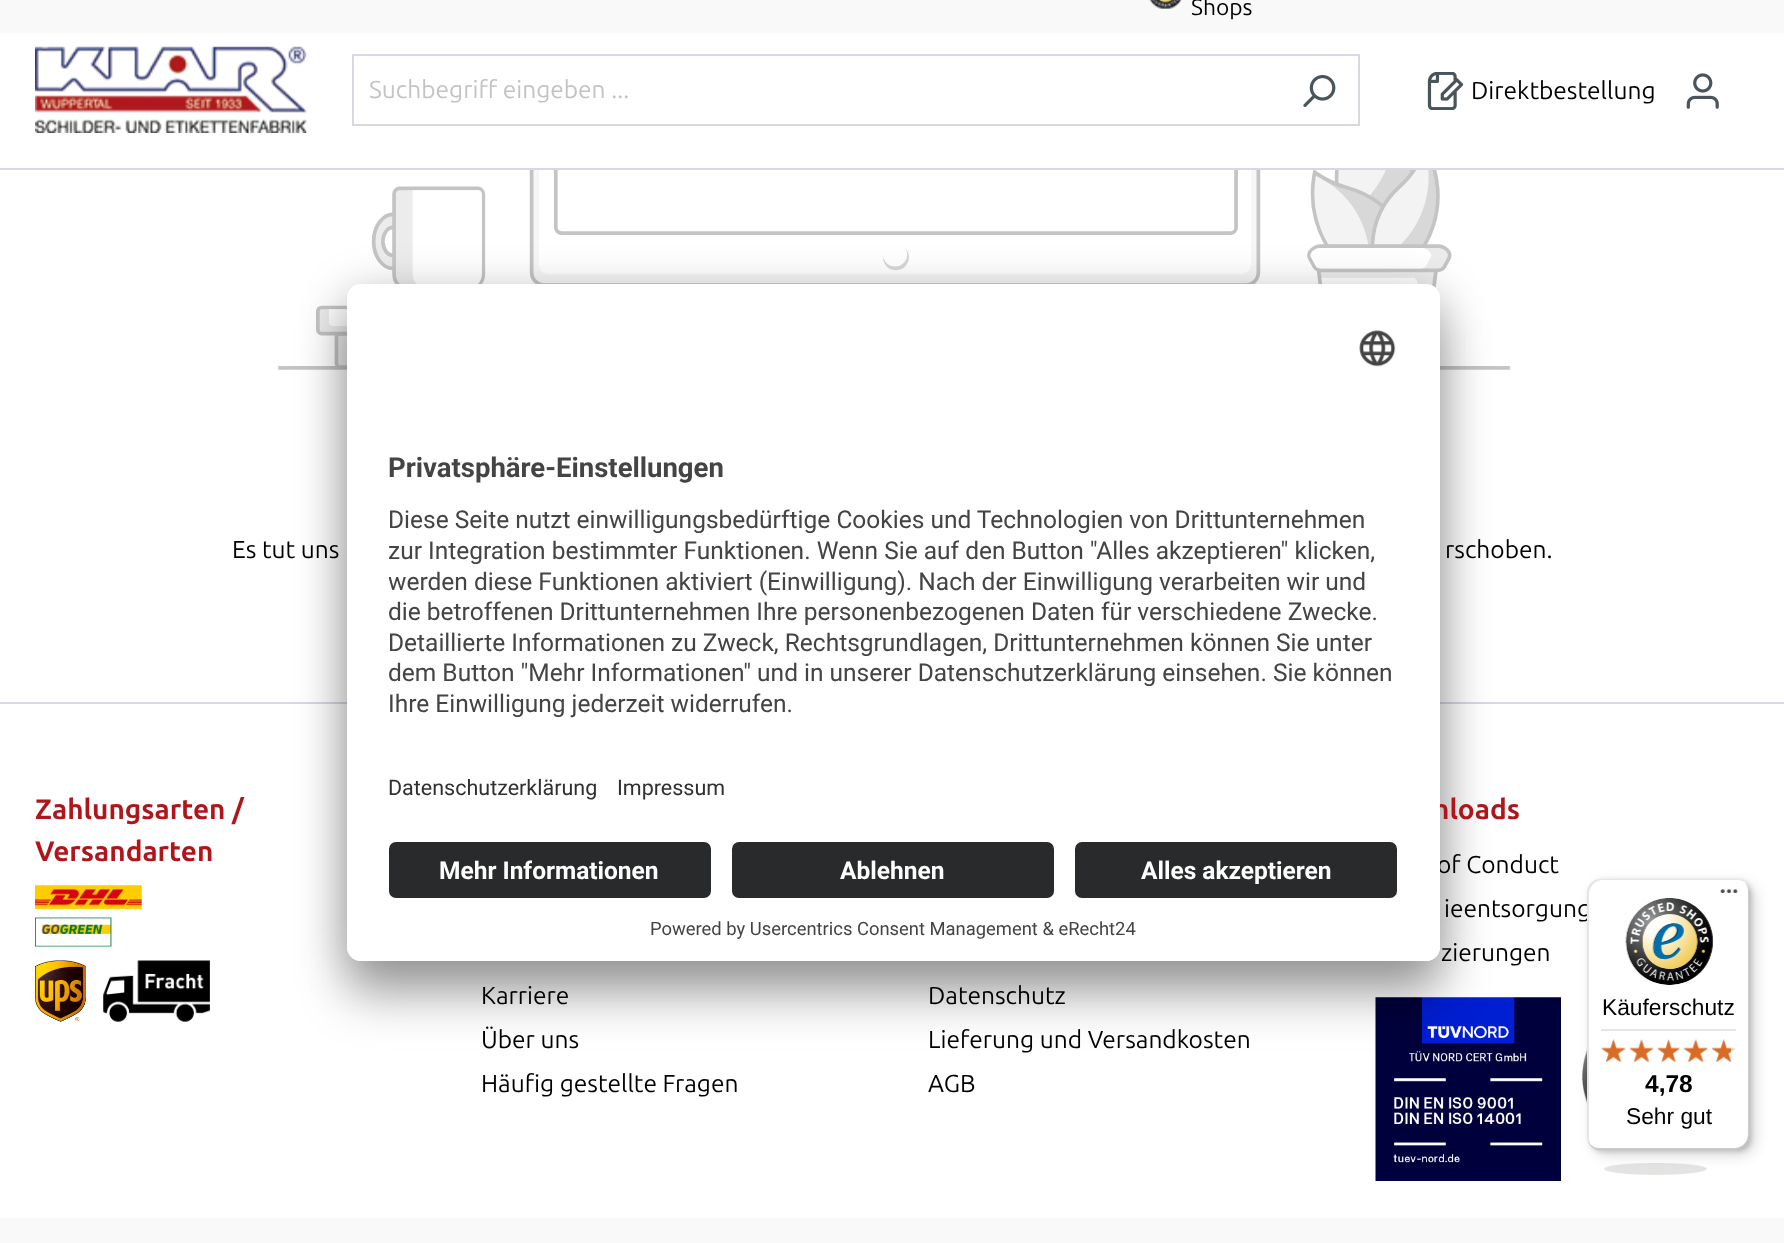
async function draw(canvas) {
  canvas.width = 1784
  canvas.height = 1243
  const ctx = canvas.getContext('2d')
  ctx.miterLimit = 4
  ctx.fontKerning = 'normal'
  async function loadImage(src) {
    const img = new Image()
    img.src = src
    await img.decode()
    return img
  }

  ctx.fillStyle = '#fff'
  ctx.fillRect(0, 0, 1784, 1243)
  ctx.fillStyle = '#f9f9f9'
  ctx.fillRect(0, 0, 1784, 33)
  ctx.drawImage(await loadImage('image0.png'), 1149, 0, 33, 9)
  ctx.font = '22.75px Ubuntu'
  ctx.fillStyle = '#000'
  ctx.fillText('Shops', 1191, 15)
  ctx.drawImage(await loadImage('image1.png'), 35, 46, 272, 87)
  ctx.fillStyle = '#d8d8e3'
  ctx.fillRect(352, 54, 1008, 2)
  ctx.fillRect(352, 124, 927, 2)
  ctx.fillRect(352, 54, 2, 72)
  ctx.font = '24.5px Ubuntu'
  ctx.fillStyle = '#c3c3c3'
  ctx.fillText('Suchbegriff eingeben ...', 369, 98)
  ctx.fillStyle = '#d8d8e3'
  ctx.fillRect(1358, 54, 2, 72)
  ctx.fillRect(1278, 124, 82, 2)
  ctx.drawImage(await loadImage('image2.png'), 1303, 75, 33, 32)
  ctx.drawImage(await loadImage('image3.png'), 1427, 72, 37, 38)
  ctx.fillStyle = '#000'
  ctx.fillText('Direktbestellung', 1471, 99)
  ctx.drawImage(await loadImage('image4.png'), 1686, 73, 33, 36)
  ctx.fillStyle = '#d8d8e3'
  ctx.fillRect(0, 168, 1784, 2)
  ctx.drawImage(await loadImage('image6.png'), 278, 170, 1232, 200)
  ctx.fillRect(0, 702, 1784, 2)
  ctx.drawImage(await loadImage('image10.png'), 1375, 997, 186, 184)
  ctx.fillStyle = '#0000004d'
  ctx.filter = 'blur(24.5px)'
  ctx.beginPath()
  ctx.roundRect(347, 319, 1093, 677, 14)
  ctx.fill()
  ctx.filter = 'none'
  ctx.fillStyle = '#00000038'
  ctx.filter = 'blur(23px)'
  ctx.beginPath()
  ctx.roundRect(347, 292, 1093, 678, 14)
  ctx.fill()
  ctx.filter = 'none'
  ctx.font = 'bold 28px Ubuntu'
  ctx.fillStyle = '#af151b'
  ctx.fillText('nloads', 1433, 819)
  ctx.font = '24.5px Ubuntu'
  ctx.fillStyle = '#000'
  ctx.fillText('of Conduct', 1437, 873)
  ctx.fillStyle = '#fff'
  ctx.beginPath()
  ctx.roundRect(347, 284, 1093, 677, 14)
  ctx.fill()
  ctx.save()
  ctx.beginPath()
  ctx.roundRect(347, 284, 1093, 677, 14)
  ctx.clip()
  ctx.beginPath()
  ctx.roundRect(347, 284, 1093, 544, [14, 14, 0, 0])
  ctx.clip()
  ctx.fillRect(347, 285, 1093, 543)
  ctx.restore()
  ctx.drawImage(await loadImage('image5.png'), 1359, 330, 37, 37)
  ctx.font = 'bold 27.5px Roboto'
  ctx.fillStyle = '#444'
  ctx.fillText('Privatsphäre-Einstellungen', 388, 477)
  ctx.font = '24.5px Roboto'
  ctx.fillText('Diese Seite nutzt einwilligungsbedürftige Cookies und Technologien von Drittunternehmen', 388, 528)
  ctx.save()
  ctx.beginPath()
  ctx.rect(389, 499, 1009, 227)
  ctx.clip()
  ctx.fillText('zur Integration bestimmter Funktionen. Wenn Sie auf den Button "Alles akzeptieren" klicken,', 388, 559)
  ctx.fillText('werden diese Funktionen aktiviert (Einwilligung). Nach der Einwilligung verarbeiten wir und', 388, 590)
  ctx.fillText('die betroffenen Drittunternehmen Ihre personenbezogenen Daten für verschiedene Zwecke.', 388, 620)
  ctx.restore()
  ctx.fillText('Detaillierte Informationen zu Zweck, Rechtsgrundlagen, Drittunternehmen können Sie unter', 388, 651)
  ctx.save()
  ctx.beginPath()
  ctx.rect(389, 499, 1009, 227)
  ctx.clip()
  ctx.fillText('dem Button "Mehr Informationen" und in unserer Datenschutzerklärung einsehen. Sie können', 388, 681)
  ctx.restore()
  ctx.fillText('Ihre Einwilligung jederzeit widerrufen.', 388, 712)
  ctx.font = '21.5px Roboto'
  ctx.fillStyle = '#303030'
  ctx.fillText('Datenschutzerklärung', 388, 795)
  ctx.fillText('Impressum', 617, 795)
  ctx.fillStyle = '#fff'
  ctx.beginPath()
  ctx.roundRect(347, 828, 1093, 133, [0, 0, 14, 14])
  ctx.fill()
  ctx.fillStyle = '#292a2b'
  ctx.beginPath()
  ctx.roundRect(389, 842, 322, 56, 7)
  ctx.fill()
  ctx.font = 'bold 24.5px Roboto'
  ctx.fillStyle = '#fff'
  ctx.fillText('Mehr Informationen', 439, 879)
  ctx.fillStyle = '#292a2b'
  ctx.beginPath()
  ctx.roundRect(732, 842, 322, 56, 7)
  ctx.fill()
  ctx.fillStyle = '#fff'
  ctx.fillText('Ablehnen', 840, 879)
  ctx.fillStyle = '#292a2b'
  ctx.beginPath()
  ctx.roundRect(1075, 842, 322, 56, 7)
  ctx.fill()
  ctx.fillStyle = '#fff'
  ctx.fillText('Alles akzeptieren', 1141, 879)
  ctx.font = '18.4px Roboto'
  ctx.fillStyle = '#444'
  ctx.fillText('Powered by Usercentrics Consent Management & eRecht24', 650, 935)
  ctx.font = '24.5px Ubuntu'
  ctx.fillStyle = '#000'
  ctx.fillText('Es tut uns', 232, 558)
  ctx.fillText('rschoben.', 1445, 558)
  ctx.font = 'bold 28px Ubuntu'
  ctx.fillStyle = '#af151b'
  ctx.fillText('Zahlungsarten /', 35, 819)
  ctx.fillText('Versandarten', 35, 861)
  ctx.drawImage(await loadImage('image7.png'), 35, 885, 107, 62)
  ctx.drawImage(await loadImage('image8.png'), 35, 960, 51, 62)
  ctx.drawImage(await loadImage('image9.png'), 103, 960, 107, 62)
  ctx.font = '24.5px Ubuntu'
  ctx.fillStyle = '#000'
  ctx.fillText('ieentsorgung', 1444, 917)
  ctx.fillText('zierungen', 1441, 961)
  ctx.drawImage(await loadImage('image11.png'), 1582, 1049, 125, 126)
  ctx.fillText('Karriere', 481, 1004)
  ctx.fillText('Über uns', 481, 1048)
  ctx.fillText('Häufig gestellte Fragen', 481, 1092)
  ctx.fillText('Datenschutz', 928, 1004)
  ctx.fillText('Lieferung und Versandkosten', 928, 1048)
  ctx.fillText('AGB', 928, 1092)
  ctx.fillStyle = '#f9f9f9'
  ctx.fillRect(0, 1218, 1784, 25)
  ctx.fillStyle = '#00000026'
  ctx.filter = 'blur(7px)'
  ctx.beginPath()
  ctx.roundRect(1593, 884, 162, 271, 14)
  ctx.fill()
  ctx.filter = 'none'
  ctx.filter = 'blur(2px)'
  ctx.beginPath()
  ctx.roundRect(1589, 880, 163, 272, 14)
  ctx.fill()
  ctx.filter = 'none'
  ctx.fillStyle = '#fff'
  ctx.beginPath()
  ctx.roundRect(1587, 879, 163, 271, 14)
  ctx.fill()
  ctx.fillStyle = '#0000001a'
  ctx.beginPath()
  ctx.moveTo(1603, 880)
  ctx.lineTo(1738, 880)
  ctx.bezierCurveTo(1740, 880, 1743, 881, 1745, 882)
  ctx.bezierCurveTo(1742, 880, 1739, 879, 1736, 879)
  ctx.lineTo(1601, 879)
  ctx.bezierCurveTo(1593, 879, 1587, 885, 1587, 893)
  ctx.lineTo(1587, 1136)
  ctx.bezierCurveTo(1587, 1141, 1589, 1145, 1593, 1147)
  ctx.bezierCurveTo(1590, 1145, 1589, 1141, 1589, 1138)
  ctx.lineTo(1589, 894)
  ctx.bezierCurveTo(1589, 887, 1595, 880, 1603, 880)
  ctx.closePath()
  ctx.fill()
  ctx.fillStyle = '#00000033'
  ctx.beginPath()
  ctx.moveTo(1588, 1142)
  ctx.bezierCurveTo(1591, 1147, 1595, 1150, 1601, 1150)
  ctx.lineTo(1736, 1150)
  ctx.bezierCurveTo(1744, 1150, 1750, 1144, 1750, 1136)
  ctx.lineTo(1750, 893)
  ctx.bezierCurveTo(1750, 889, 1748, 885, 1745, 883)
  ctx.bezierCurveTo(1747, 885, 1748, 888, 1748, 891)
  ctx.lineTo(1748, 1134)
  ctx.bezierCurveTo(1748, 1142, 1742, 1148, 1734, 1148)
  ctx.lineTo(1600, 1148)
  ctx.bezierCurveTo(1595, 1148, 1591, 1146, 1588, 1142)
  ctx.closePath()
  ctx.fill()
  ctx.fillStyle = '#32323233'
  ctx.beginPath()
  ctx.moveTo(1590, 1144)
  ctx.bezierCurveTo(1592, 1148, 1596, 1150, 1601, 1150)
  ctx.lineTo(1736, 1150)
  ctx.bezierCurveTo(1744, 1150, 1750, 1144, 1750, 1136)
  ctx.lineTo(1750, 893)
  ctx.bezierCurveTo(1750, 890, 1749, 887, 1748, 885)
  ctx.bezierCurveTo(1749, 887, 1749, 889, 1749, 891)
  ctx.lineTo(1749, 1135)
  ctx.bezierCurveTo(1749, 1142, 1743, 1149, 1735, 1149)
  ctx.lineTo(1600, 1149)
  ctx.bezierCurveTo(1596, 1149, 1592, 1147, 1590, 1144)
  ctx.closePath()
  ctx.fill()
  ctx.fillStyle = '#ffffff4d'
  ctx.beginPath()
  ctx.moveTo(1590, 1145)
  ctx.bezierCurveTo(1592, 1148, 1596, 1150, 1601, 1150)
  ctx.lineTo(1736, 1150)
  ctx.bezierCurveTo(1744, 1150, 1750, 1144, 1750, 1136)
  ctx.lineTo(1750, 893)
  ctx.bezierCurveTo(1750, 889, 1749, 886, 1746, 884)
  ctx.bezierCurveTo(1748, 886, 1749, 889, 1749, 892)
  ctx.lineTo(1749, 1135)
  ctx.bezierCurveTo(1749, 1143, 1743, 1149, 1735, 1149)
  ctx.lineTo(1600, 1149)
  ctx.bezierCurveTo(1596, 1149, 1593, 1147, 1590, 1145)
  ctx.closePath()
  ctx.fill()
  ctx.drawImage(await loadImage('image12.png'), 1720, 889, 18, 4)
  ctx.drawImage(await loadImage('image13.png'), 1625, 898, 89, 87)
  ctx.font = '22.75px Liberation Sans'
  ctx.fillStyle = '#000'
  ctx.fillText('Käuferschutz', 1602, 1015)
  ctx.fillStyle = '#e5e5e5'
  ctx.fillRect(1601, 1029, 135, 2)
  ctx.drawImage(await loadImage('image14.png'), 1601, 1039, 25, 23)
  ctx.drawImage(await loadImage('image15.png'), 1629, 1040, 25, 22)
  ctx.drawImage(await loadImage('image16.png'), 1657, 1039, 23, 23)
  ctx.drawImage(await loadImage('image17.png'), 1683, 1039, 25, 23)
  ctx.drawImage(await loadImage('image18.png'), 1712, 1039, 24, 23)
  ctx.drawImage(await loadImage('image19.png'), 1601, 1039, 25, 24)
  ctx.drawImage(await loadImage('image20.png'), 1629, 1039, 25, 24)
  ctx.drawImage(await loadImage('image21.png'), 1657, 1039, 23, 24)
  ctx.drawImage(await loadImage('image22.png'), 1683, 1039, 25, 24)
  ctx.drawImage(await loadImage('image23.png'), 1711, 1039, 20, 24)
  ctx.font = 'bold 24.5px Liberation Sans'
  ctx.fillStyle = '#000'
  ctx.fillText('4,78', 1645, 1092)
  ctx.font = '22.75px Liberation Sans'
  ctx.fillText('Sehr gut', 1626, 1124)
}

draw(document.querySelector('canvas'))
